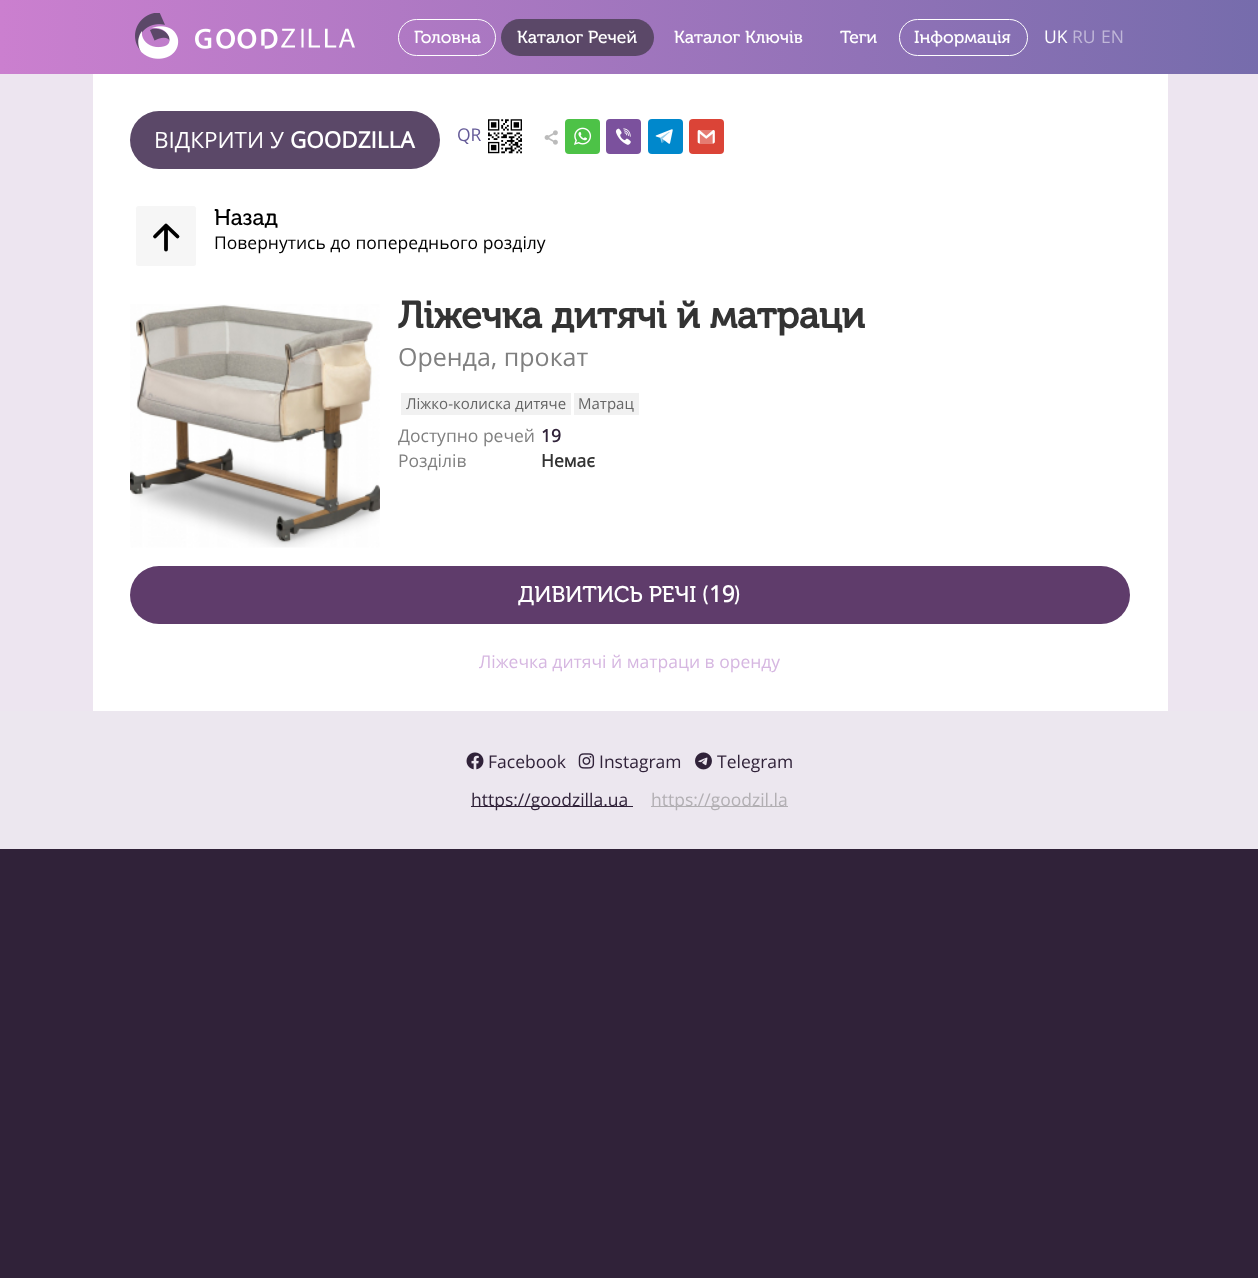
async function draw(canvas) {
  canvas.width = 1258
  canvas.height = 1278
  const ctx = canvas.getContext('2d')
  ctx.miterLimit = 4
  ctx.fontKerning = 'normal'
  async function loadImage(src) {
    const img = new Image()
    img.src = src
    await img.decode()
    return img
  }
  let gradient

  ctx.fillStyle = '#302239'
  ctx.fillRect(0, 0, 1258, 1278)
  ctx.fillStyle = '#ede5f0'
  ctx.fillRect(0, 74, 1258, 637)
  gradient = ctx.createLinearGradient(0, 37, 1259, 37)
  gradient.addColorStop(0, '#cb7fcf')
  gradient.addColorStop(1, '#766cac')
  ctx.fillStyle = gradient
  ctx.fillRect(0, 0, 1258, 74)
  ctx.drawImage(await loadImage('image0.png'), 135, 13, 220, 46)
  ctx.beginPath()
  ctx.roundRect(398.5, 19.5, 97, 36, 18)
  ctx.strokeStyle = '#fff'
  ctx.stroke()
  ctx.font = '17.5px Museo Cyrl'
  ctx.fillStyle = '#fff'
  ctx.fillText('Головна', 414, 43)
  ctx.fillStyle = '#5b4868'
  ctx.beginPath()
  ctx.roundRect(501, 19, 153, 37, 18.5)
  ctx.fill()
  ctx.fillStyle = '#fff'
  ctx.fillText('Каталог Речей', 517, 43)
  ctx.fillText('Каталог Ключів', 674, 43)
  ctx.fillText('Теги', 840, 43)
  ctx.beginPath()
  ctx.roundRect(899.5, 19.5, 128, 36, 18)
  ctx.stroke()
  ctx.fillText('Інформація', 914, 43)
  ctx.font = '17.5px Open Sans'
  ctx.fillText('UK', 1044, 43)
  ctx.fillStyle = '#c0b7d8'
  ctx.fillText('RU', 1072, 43)
  ctx.fillText('EN', 1101, 43)
  ctx.fillStyle = '#fff'
  ctx.fillRect(93, 74, 1075, 637)
  ctx.fillStyle = '#5b4868'
  ctx.beginPath()
  ctx.roundRect(130, 111, 310, 58, 29)
  ctx.fill()
  ctx.font = '22.5px Open Sans'
  ctx.fillStyle = '#fff'
  ctx.fillText('ВІДКРИТИ У', 154, 148)
  ctx.font = 'bold 22.5px Open Sans'
  ctx.fillText('GOODZILLA', 290, 148)
  ctx.font = '17.5px Open Sans'
  ctx.fillStyle = '#655b98'
  ctx.fillText('QR', 457, 141)
  ctx.drawImage(await loadImage('image1.png'), 488, 119, 34, 35)
  ctx.drawImage(await loadImage('image2.png'), 544, 130, 14, 15)
  ctx.fillStyle = '#4dc247'
  ctx.beginPath()
  ctx.roundRect(565, 119, 35, 35, 4)
  ctx.fill()
  ctx.drawImage(await loadImage('image3.png'), 574, 127, 18, 18)
  ctx.fillStyle = '#7b519d'
  ctx.beginPath()
  ctx.roundRect(606, 119, 35, 35, 4)
  ctx.fill()
  ctx.drawImage(await loadImage('image4.png'), 615, 128, 16, 17)
  ctx.fillStyle = '#08c'
  ctx.beginPath()
  ctx.roundRect(648, 119, 35, 35, 4)
  ctx.fill()
  ctx.drawImage(await loadImage('image5.png'), 655, 129, 18, 15)
  ctx.fillStyle = '#db4437'
  ctx.beginPath()
  ctx.roundRect(689, 119, 35, 35, 4)
  ctx.fill()
  ctx.drawImage(await loadImage('image6.png'), 697, 130, 18, 14)
  ctx.fillStyle = '#f6f6f6'
  ctx.beginPath()
  ctx.roundRect(136, 206, 60, 60, 2.5)
  ctx.fill()
  ctx.beginPath()
  ctx.moveTo(155, 236.5)
  ctx.lineTo(166, 225.5)
  ctx.lineTo(177.5, 236.5)
  ctx.moveTo(166, 227)
  ctx.lineTo(166, 249.5)
  ctx.strokeStyle = '#000'
  ctx.lineWidth = 3.8
  ctx.lineCap = 'round'
  ctx.lineJoin = 'round'
  ctx.stroke()
  ctx.font = '22.5px Museo Cyrl'
  ctx.fillStyle = '#000'
  ctx.fillText('Назад', 214, 225)
  ctx.font = '17.5px Open Sans'
  ctx.fillText('Повернутись до попереднього розділу', 214, 249)
  ctx.drawImage(await loadImage('image7.png'), 130, 304, 250, 244)
  ctx.font = 'bold 37.5px Museo Cyrl'
  ctx.fillStyle = '#333'
  ctx.fillText('Ліжечка дитячі й матраци', 398, 328)
  ctx.font = '25px Open Sans'
  ctx.fillStyle = '#808080'
  ctx.fillText('Оренда, прокат', 398, 366)
  ctx.fillStyle = '#f1f1f1'
  ctx.fillRect(401, 393, 170, 22)
  ctx.font = '15px Open Sans'
  ctx.fillStyle = '#656565'
  ctx.fillText('Ліжко-колиска дитяче', 406, 409)
  ctx.fillStyle = '#f1f1f1'
  ctx.fillRect(574, 393, 65, 22)
  ctx.fillStyle = '#656565'
  ctx.fillText('Матрац', 578, 409)
  ctx.font = '17.5px Open Sans'
  ctx.fillStyle = '#808080'
  ctx.fillText('Доступно речей', 398, 442)
  ctx.font = 'bold 17.5px Open Sans'
  ctx.fillStyle = '#302239'
  ctx.fillText('19', 541, 442)
  ctx.font = '17.5px Open Sans'
  ctx.fillStyle = '#808080'
  ctx.fillText('Розділів', 398, 467)
  ctx.font = 'bold 17.5px Open Sans'
  ctx.fillStyle = '#333'
  ctx.fillText('Немає', 541, 467)
  ctx.fillStyle = '#5f3c6b'
  ctx.beginPath()
  ctx.roundRect(130, 566, 1000, 58, 29)
  ctx.fill()
  ctx.font = '22.5px Museo Cyrl'
  ctx.fillStyle = '#fff'
  ctx.fillText('ДИВИТИСЬ РЕЧІ (', 518, 602)
  ctx.font = 'bold 22.5px Open Sans'
  ctx.fillText('19', 709, 602)
  ctx.font = '22.5px Museo Cyrl'
  ctx.fillText(')', 734, 602)
  ctx.font = '17.5px Open Sans'
  ctx.fillStyle = '#d6b7e1'
  ctx.fillText('Ліжечка дитячі й матраци в оренду', 479, 668)
  ctx.fillStyle = '#ece7ef'
  ctx.fillRect(0, 711, 1258, 138)
  ctx.drawImage(await loadImage('image8.png'), 466, 752, 18, 18)
  ctx.fillStyle = '#302239'
  ctx.fillText('Facebook', 488, 768)
  ctx.drawImage(await loadImage('image9.png'), 578, 753, 17, 16)
  ctx.fillText('Instagram', 599, 768)
  ctx.drawImage(await loadImage('image10.png'), 695, 752, 17, 18)
  ctx.fillText('Telegram', 717, 768)
  ctx.fillRect(471, 806, 162, 1)
  ctx.fillText('https://goodzilla.ua', 471, 806)
  ctx.fillStyle = '#b2afb3'
  ctx.fillRect(651, 806, 137, 1)
  ctx.fillText('https://goodzil.la', 651, 806)
}

draw(document.querySelector('canvas'))
